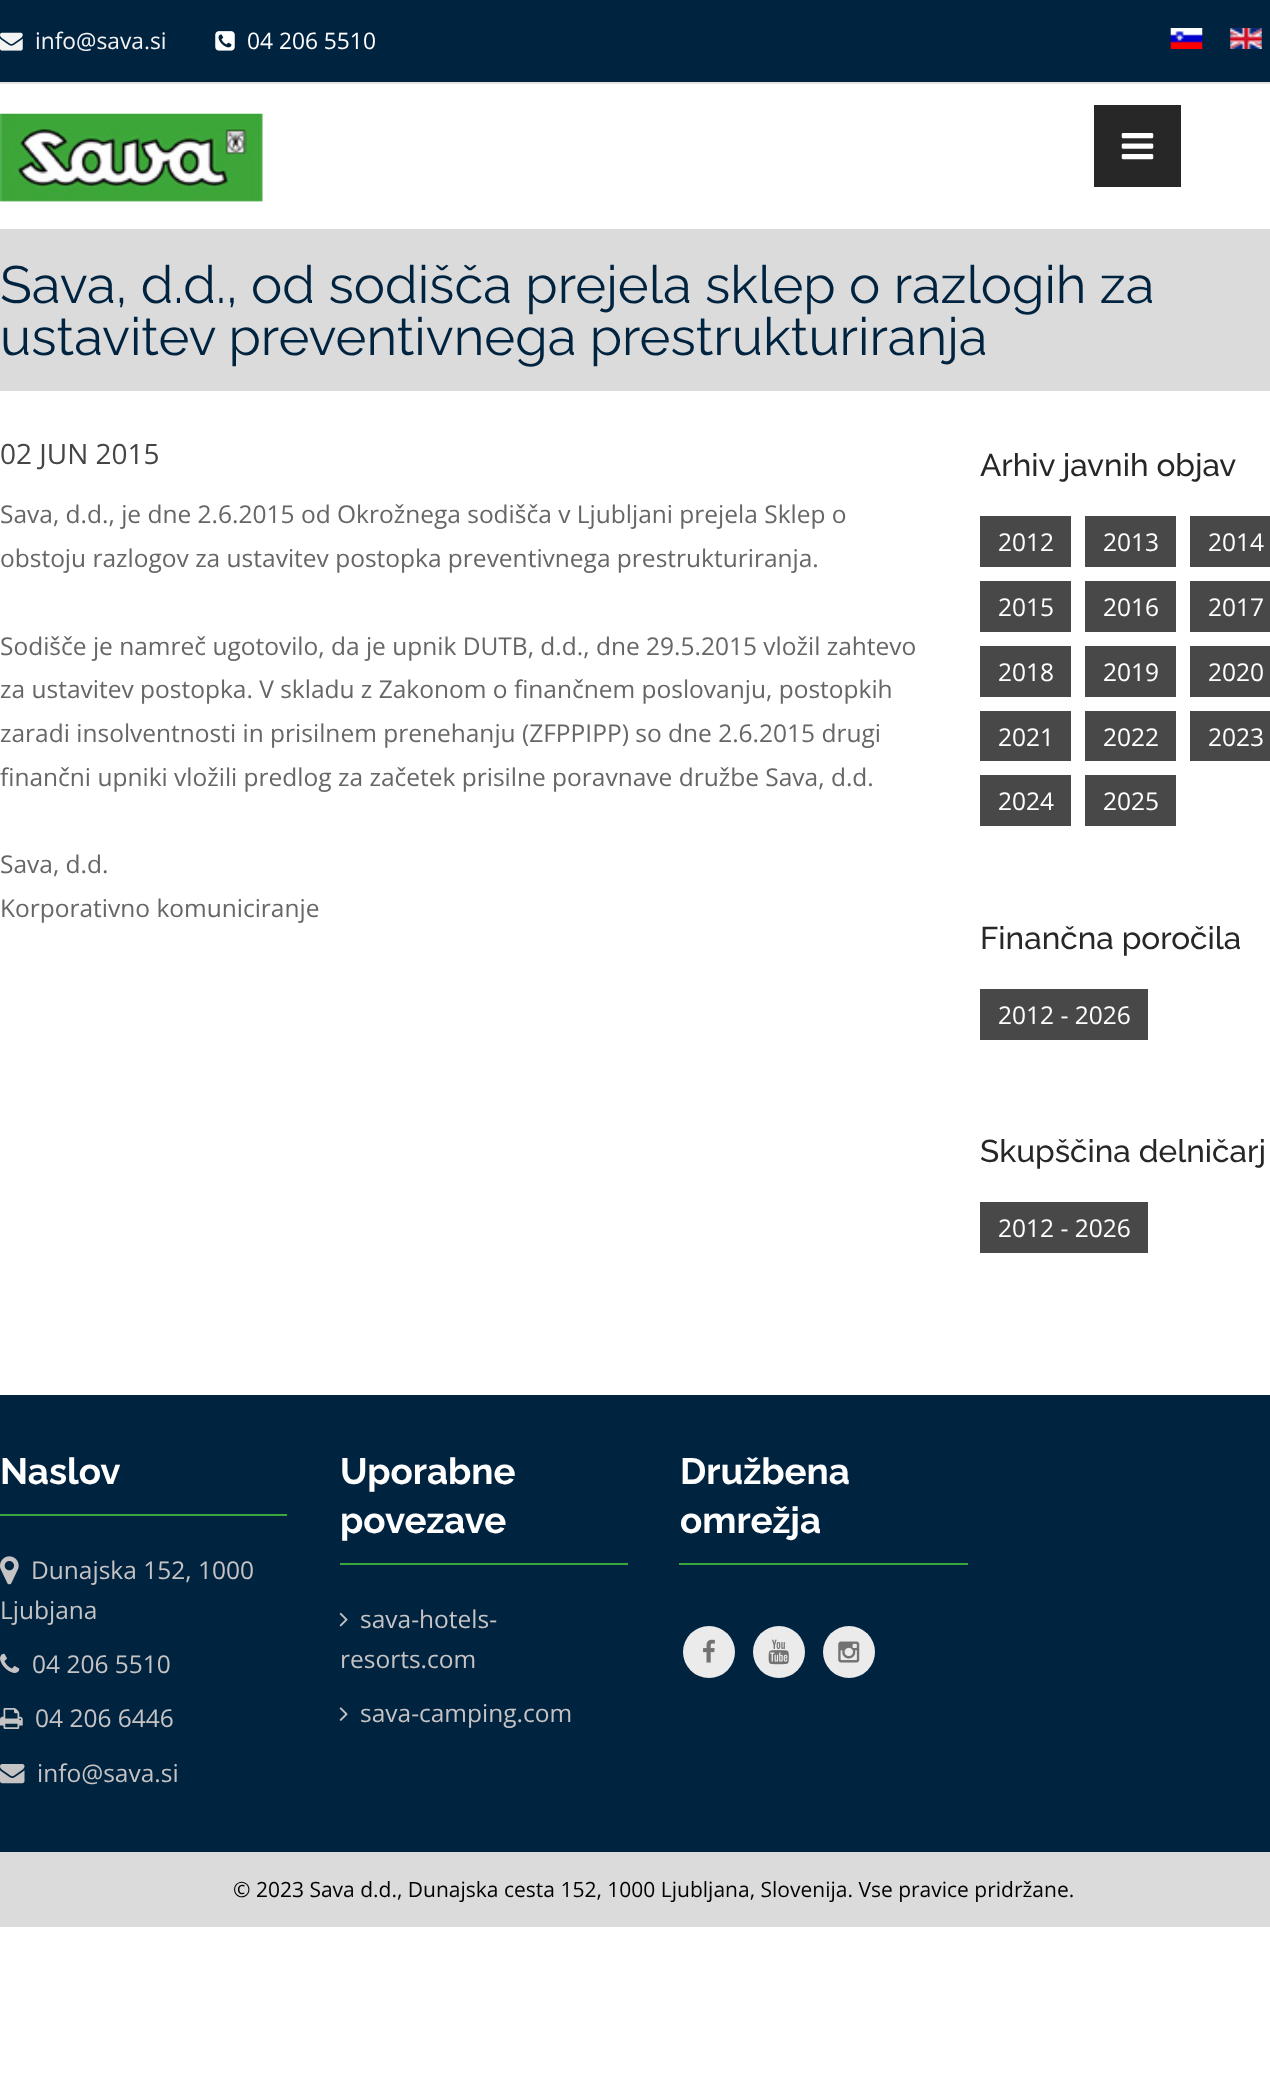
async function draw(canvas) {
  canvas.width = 1270
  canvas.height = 2100
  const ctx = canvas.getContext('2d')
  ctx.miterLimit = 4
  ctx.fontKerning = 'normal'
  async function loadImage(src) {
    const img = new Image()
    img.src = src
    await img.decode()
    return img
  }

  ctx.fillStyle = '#fff'
  ctx.fillRect(0, 0, 1270, 2100)
  ctx.fillStyle = '#002340'
  ctx.fillRect(0, 0, 1270, 82)
  ctx.fillStyle = '#e3e3e3'
  ctx.fillRect(0, 82, 1270, 2)
  ctx.drawImage(await loadImage('image0.png'), 0, 32, 23, 19)
  ctx.font = '22.75px Open Sans'
  ctx.fillStyle = '#f3f3f3'
  ctx.fillText('info@sava.si', 35, 49)
  ctx.drawImage(await loadImage('image1.png'), 215, 31, 20, 20)
  ctx.fillStyle = '#fff'
  ctx.fillText('04 206 5510', 247, 49)
  ctx.drawImage(await loadImage('image2.png'), 1170, 28, 33, 21)
  ctx.drawImage(await loadImage('image3.png'), 1230, 28, 32, 21)
  ctx.drawImage(await loadImage('image4.png'), 0, 113, 263, 89)
  ctx.fillStyle = '#272727'
  ctx.fillRect(1094, 105, 87, 82)
  ctx.drawImage(await loadImage('image5.png'), 1121, 133, 33, 27)
  ctx.fillStyle = '#dbdbdb'
  ctx.fillRect(0, 229, 1270, 162)
  ctx.font = '52.5px Raleway'
  ctx.fillStyle = '#002340'
  ctx.fillText('Sava, d.d., od sodišča prejela sklep o razlogih za', 0, 303)
  ctx.fillText('ustavitev preventivnega prestrukturiranja', 0, 355)
  ctx.font = '28px Open Sans'
  ctx.fillStyle = '#454545'
  ctx.fillText('02 JUN 2015', 0, 464)
  ctx.font = '24.5px Open Sans'
  ctx.fillStyle = '#666'
  ctx.fillText('Sava, d.d., je dne 2.6.2015 od Okrožnega sodišča v Ljubljani prejela Sklep o', 0, 523)
  ctx.fillText('obstoju razlogov za ustavitev postopka preventivnega prestrukturiranja.', 0, 567)
  ctx.fillText('Sodišče je namreč ugotovilo, da je upnik DUTB, d.d., dne 29.5.2015 vložil zahtevo', 0, 655)
  ctx.fillText('za ustavitev postopka. V skladu z Zakonom o finančnem poslovanju, postopkih', 0, 698)
  ctx.fillText('zaradi insolventnosti in prisilnem prenehanju (ZFPPIPP) so dne 2.6.2015 drugi', 0, 742)
  ctx.fillText('finančni upniki vložili predlog za začetek prisilne poravnave družbe Sava, d.d.', 0, 786)
  ctx.fillText('Sava, d.d.', 0, 873)
  ctx.fillText('Korporativno komuniciranje', 0, 917)
  ctx.font = '500 31.5px Raleway'
  ctx.fillStyle = '#272727'
  ctx.fillText('Arhiv javnih objav', 980, 476)
  ctx.fillStyle = '#484848'
  ctx.fillRect(980, 516, 91, 51)
  ctx.font = '24.5px Open Sans'
  ctx.fillStyle = '#fff'
  ctx.fillText('2012', 998, 551)
  ctx.fillStyle = '#484848'
  ctx.fillRect(1085, 516, 91, 51)
  ctx.fillStyle = '#fff'
  ctx.fillText('2013', 1103, 551)
  ctx.fillStyle = '#484848'
  ctx.fillRect(1190, 516, 80, 51)
  ctx.fillStyle = '#fff'
  ctx.fillText('2014', 1208, 551)
  ctx.fillStyle = '#484848'
  ctx.fillRect(980, 581, 91, 51)
  ctx.fillStyle = '#fff'
  ctx.fillText('2015', 998, 616)
  ctx.fillStyle = '#484848'
  ctx.fillRect(1085, 581, 91, 51)
  ctx.fillStyle = '#fff'
  ctx.fillText('2016', 1103, 616)
  ctx.fillStyle = '#484848'
  ctx.fillRect(1190, 581, 80, 51)
  ctx.fillStyle = '#fff'
  ctx.fillText('2017', 1208, 616)
  ctx.fillStyle = '#484848'
  ctx.fillRect(980, 646, 91, 51)
  ctx.fillStyle = '#fff'
  ctx.fillText('2018', 998, 681)
  ctx.fillStyle = '#484848'
  ctx.fillRect(1085, 646, 91, 51)
  ctx.fillStyle = '#fff'
  ctx.fillText('2019', 1103, 681)
  ctx.fillStyle = '#484848'
  ctx.fillRect(1190, 646, 80, 51)
  ctx.fillStyle = '#fff'
  ctx.fillText('2020', 1208, 681)
  ctx.fillStyle = '#484848'
  ctx.fillRect(980, 711, 91, 50)
  ctx.fillStyle = '#fff'
  ctx.fillText('2021', 998, 746)
  ctx.fillStyle = '#484848'
  ctx.fillRect(1085, 711, 91, 50)
  ctx.fillStyle = '#fff'
  ctx.fillText('2022', 1103, 746)
  ctx.fillStyle = '#484848'
  ctx.fillRect(1190, 711, 80, 50)
  ctx.fillStyle = '#fff'
  ctx.fillText('2023', 1208, 746)
  ctx.fillStyle = '#484848'
  ctx.fillRect(980, 775, 91, 51)
  ctx.fillStyle = '#fff'
  ctx.fillText('2024', 998, 810)
  ctx.fillStyle = '#484848'
  ctx.fillRect(1085, 775, 91, 51)
  ctx.fillStyle = '#fff'
  ctx.fillText('2025', 1103, 810)
  ctx.font = '500 31.5px Raleway'
  ctx.fillStyle = '#272727'
  ctx.fillText('Finančna poročila', 980, 949)
  ctx.fillStyle = '#484848'
  ctx.fillRect(980, 989, 168, 51)
  ctx.font = '24.5px Open Sans'
  ctx.fillStyle = '#fff'
  ctx.fillText('2012 - 2026', 998, 1024)
  ctx.font = '500 31.5px Raleway'
  ctx.fillStyle = '#272727'
  ctx.fillText('Skupščina delničarj', 980, 1162)
  ctx.fillStyle = '#484848'
  ctx.fillRect(980, 1202, 168, 51)
  ctx.font = '24.5px Open Sans'
  ctx.fillStyle = '#fff'
  ctx.fillText('2012 - 2026', 998, 1237)
  ctx.fillStyle = '#002340'
  ctx.fillRect(0, 1395, 1270, 457)
  ctx.fillStyle = '#3aa73c'
  ctx.fillRect(0, 1514, 287, 2)
  ctx.font = 'bold 36.75px Raleway'
  ctx.fillStyle = '#fff'
  ctx.fillText('Naslov', 0, 1484)
  ctx.drawImage(await loadImage('image6.png'), 0, 1556, 19, 29)
  ctx.font = '24.5px Open Sans'
  ctx.fillStyle = '#c5c3c3'
  ctx.fillText('Dunajska 152, 1000', 31, 1579)
  ctx.fillText('Ljubjana', 0, 1619)
  ctx.drawImage(await loadImage('image7.png'), 0, 1653, 20, 20)
  ctx.fillText('04 206 5510', 32, 1673)
  ctx.drawImage(await loadImage('image8.png'), 0, 1708, 23, 21)
  ctx.fillText('04 206 6446', 35, 1727)
  ctx.drawImage(await loadImage('image9.png'), 0, 1764, 25, 20)
  ctx.fillText('info@sava.si', 37, 1782)
  ctx.fillStyle = '#3aa73c'
  ctx.fillRect(340, 1563, 288, 2)
  ctx.font = 'bold 36.75px Raleway'
  ctx.fillStyle = '#fff'
  ctx.fillText('Uporabne', 340, 1484)
  ctx.fillText('povezave', 340, 1533)
  ctx.drawImage(await loadImage('image10.png'), 339, 1612, 9, 15)
  ctx.font = '24.5px Open Sans'
  ctx.fillStyle = '#c5c3c3'
  ctx.fillText('sava-hotels-', 360, 1628)
  ctx.fillText('resorts.com', 340, 1668)
  ctx.drawImage(await loadImage('image11.png'), 339, 1707, 9, 14)
  ctx.fillText('sava-camping.com', 360, 1722)
  ctx.fillStyle = '#3aa73c'
  ctx.fillRect(679, 1563, 289, 2)
  ctx.font = 'bold 36.75px Raleway'
  ctx.fillStyle = '#fff'
  ctx.fillText('Družbena', 680, 1484)
  ctx.fillText('omrežja', 680, 1533)
  ctx.fillStyle = '#ebebeb'
  ctx.beginPath()
  ctx.arc(709, 1652, 26, 0, 2 * Math.PI)
  ctx.fill()
  ctx.drawImage(await loadImage('image12.png'), 703, 1639, 12, 24)
  ctx.beginPath()
  ctx.arc(779, 1652, 26, 0, 2 * Math.PI)
  ctx.fill()
  ctx.drawImage(await loadImage('image13.png'), 768, 1639, 21, 26)
  ctx.beginPath()
  ctx.arc(849, 1652, 26, 0, 2 * Math.PI)
  ctx.fill()
  ctx.drawImage(await loadImage('image14.png'), 838, 1641, 22, 22)
  ctx.fillStyle = '#dbdbdb'
  ctx.fillRect(0, 1852, 1270, 75)
  ctx.font = '21px Open Sans'
  ctx.fillStyle = '#000'
  ctx.fillText('© 2023 Sava d.d., Dunajska cesta 152, 1000 Ljubljana, Slovenija. Vse pravice pridržane.', 233, 1897)
}

draw(document.querySelector('canvas'))
